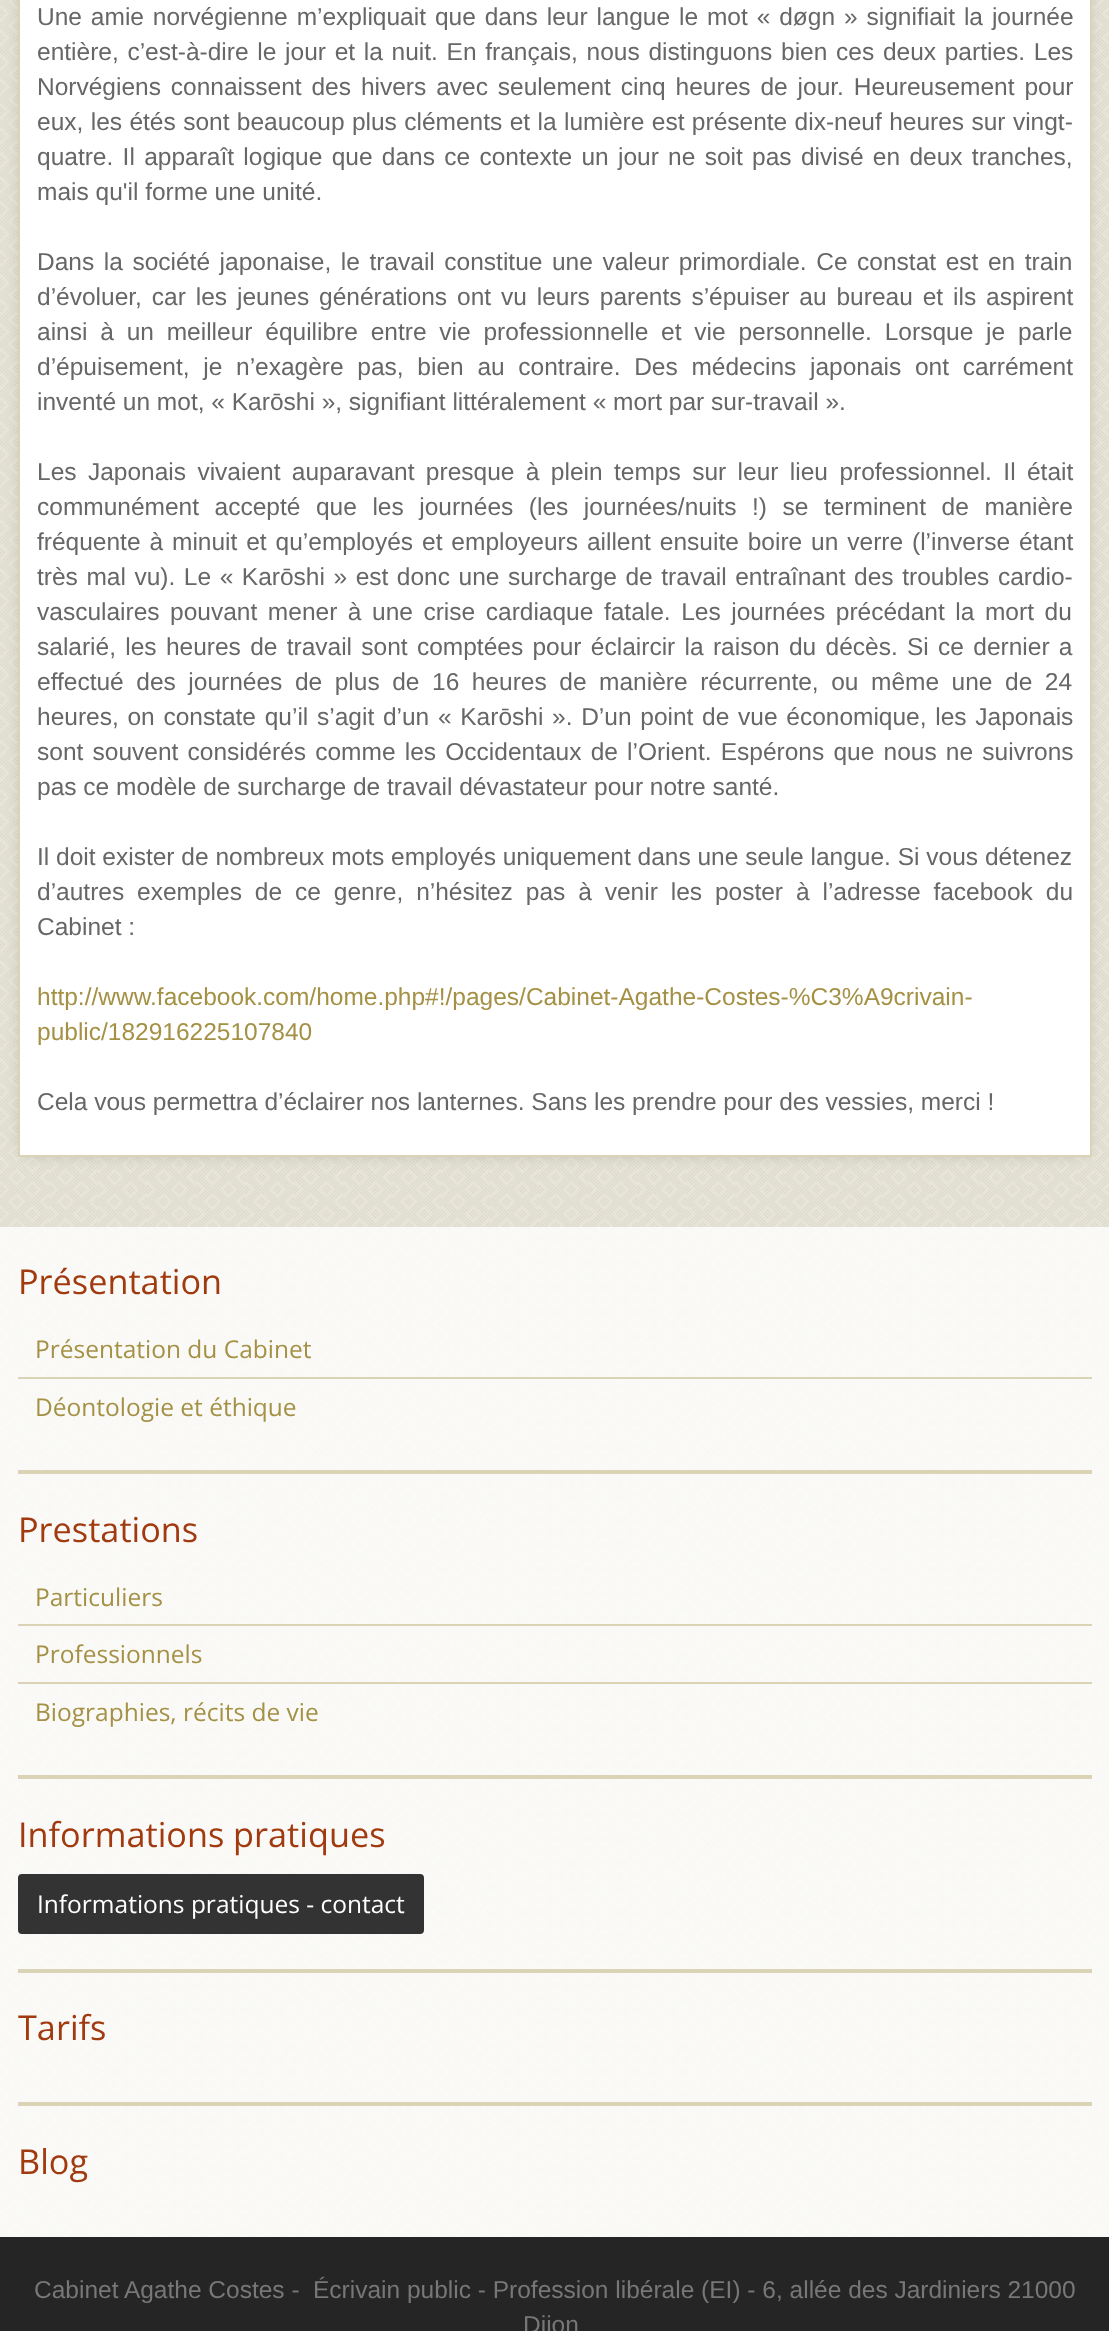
async function draw(canvas) {
  canvas.width = 1109
  canvas.height = 2331
  const ctx = canvas.getContext('2d')
  ctx.miterLimit = 4
  ctx.fontKerning = 'normal'
  async function loadImage(src) {
    const img = new Image()
    img.src = src
    await img.decode()
    return img
  }

  ctx.fillStyle = '#efecdf'
  ctx.fillRect(0, 0, 1109, 2331)
  ctx.drawImage(await loadImage('image0.png'), 0, 0, 1109, 2237)
  ctx.fillStyle = '#0000004d'
  ctx.filter = 'blur(9px)'
  ctx.beginPath()
  ctx.rect(26, -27, 1057, 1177)
  ctx.fill()
  ctx.filter = 'none'
  ctx.fillStyle = '#fff'
  ctx.beginPath()
  ctx.rect(19, -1, 1072, 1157)
  ctx.fill()
  ctx.strokeStyle = '#dbd3b5'
  ctx.lineWidth = 2
  ctx.stroke()
  ctx.wordSpacing = '2.1px'
  ctx.font = '24.5px Liberation Sans'
  ctx.fillStyle = '#676767'
  ctx.fillText('Une amie norvégienne m’expliquait que dans leur langue le mot « døgn » signifiait la journée', 37, 25)
  ctx.wordSpacing = '1.9px'
  ctx.fillText('entière, c’est-à-dire le jour et la nuit. En français, nous distinguons bien ces deux parties. Les', 37, 60)
  ctx.wordSpacing = '3.1px'
  ctx.fillText('Norvégiens connaissent des hivers avec seulement cinq heures de jour. Heureusement pour', 37, 95)
  ctx.wordSpacing = '0.6px'
  ctx.fillText('eux, les étés sont beaucoup plus cléments et la lumière est présente dix-neuf heures sur vingt-', 37, 130)
  ctx.wordSpacing = '2.5px'
  ctx.fillText('quatre. Il apparaît logique que dans ce contexte un jour ne soit pas divisé en deux tranches,', 37, 165)
  ctx.wordSpacing = '0px'
  ctx.fillText('mais qu\'il forme une unité.', 37, 200)
  ctx.wordSpacing = '2.75px'
  ctx.fillText('Dans la société japonaise, le travail constitue une valeur primordiale. Ce constat est en train', 37, 270)
  ctx.wordSpacing = '3.1px'
  ctx.fillText('d’évoluer, car les jeunes générations ont vu leurs parents s’épuiser au bureau et ils aspirent', 37, 305)
  ctx.wordSpacing = '6px'
  ctx.fillText('ainsi à un meilleur équilibre entre vie professionnelle et vie personnelle. Lorsque je parle', 37, 340)
  ctx.wordSpacing = '6.9px'
  ctx.fillText('d’épuisement, je n’exagère pas, bien au contraire. Des médecins japonais ont carrément', 37, 375)
  ctx.wordSpacing = '0px'
  ctx.fillText('inventé un mot, « Karōshi », signifiant littéralement « mort par sur-travail ».', 37, 410)
  ctx.wordSpacing = '4.6px'
  ctx.fillText('Les Japonais vivaient auparavant presque à plein temps sur leur lieu professionnel. Il était', 37, 480)
  ctx.wordSpacing = '8.75px'
  ctx.fillText('communément accepté que les journées (les journées/nuits !) se terminent de manière', 37, 515)
  ctx.wordSpacing = '2.1px'
  ctx.fillText('fréquente à minuit et qu’employés et employeurs aillent ensuite boire un verre (l’inverse étant', 37, 550)
  ctx.wordSpacing = '1.75px'
  ctx.fillText('très mal vu). Le « Karōshi » est donc une surcharge de travail entraînant des troubles cardio-', 37, 585)
  ctx.wordSpacing = '3.75px'
  ctx.fillText('vasculaires pouvant mener à une crise cardiaque fatale. Les journées précédant la mort du', 37, 620)
  ctx.wordSpacing = '2.5px'
  ctx.fillText('salarié, les heures de travail sont comptées pour éclaircir la raison du décès. Si ce dernier a', 37, 655)
  ctx.wordSpacing = '5.75px'
  ctx.fillText('effectué des journées de plus de 16 heures de manière récurrente, ou même une de 24', 37, 690)
  ctx.wordSpacing = '1.9px'
  ctx.fillText('heures, on constate qu’il s’agit d’un « Karōshi ». D’un point de vue économique, les Japonais', 37, 725)
  ctx.wordSpacing = '2.4px'
  ctx.fillText('sont souvent considérés comme les Occidentaux de l’Orient. Espérons que nous ne suivrons', 37, 760)
  ctx.wordSpacing = '0px'
  ctx.fillText('pas ce modèle de surcharge de travail dévastateur pour notre santé.', 37, 795)
  ctx.fillText('Il doit exister de nombreux mots employés uniquement dans une seule langue. Si vous détenez', 37, 865)
  ctx.wordSpacing = '6.1px'
  ctx.fillText('d’autres exemples de ce genre, n’hésitez pas à venir les poster à l’adresse facebook du', 37, 900)
  ctx.wordSpacing = '0px'
  ctx.fillText('Cabinet :', 37, 935)
  ctx.fillStyle = '#a49145'
  ctx.fillText('http://www.facebook.com/home.php#!/pages/Cabinet-Agathe-Costes-%C3%A9crivain-', 37, 1005)
  ctx.fillText('public/182916225107840', 37, 1040)
  ctx.fillStyle = '#676767'
  ctx.fillText('Cela vous permettra d’éclairer nos lanternes. Sans les prendre pour des vessies, merci !', 37, 1110)
  ctx.fillStyle = '#ffffffcc'
  ctx.fillRect(0, 1227, 1109, 1010)
  ctx.fillStyle = '#dbd3b5'
  ctx.fillRect(18, 1470, 1074, 4)
  ctx.font = '34.25px Open Sans'
  ctx.fillStyle = '#a13a0f'
  ctx.fillText('Présentation', 18, 1294)
  ctx.fillStyle = '#dbd3b5'
  ctx.fillRect(18, 1377, 1074, 2)
  ctx.font = '24.5px Open Sans'
  ctx.fillStyle = '#a49145'
  ctx.fillText('Présentation du Cabinet', 35, 1358)
  ctx.fillText('Déontologie et éthique', 35, 1416)
  ctx.fillStyle = '#dbd3b5'
  ctx.fillRect(18, 1775, 1074, 4)
  ctx.font = '34.25px Open Sans'
  ctx.fillStyle = '#a13a0f'
  ctx.fillText('Prestations', 18, 1542)
  ctx.fillStyle = '#dbd3b5'
  ctx.fillRect(18, 1624, 1074, 2)
  ctx.font = '24.5px Open Sans'
  ctx.fillStyle = '#a49145'
  ctx.fillText('Particuliers', 35, 1606)
  ctx.fillStyle = '#dbd3b5'
  ctx.fillRect(18, 1682, 1074, 2)
  ctx.fillStyle = '#a49145'
  ctx.fillText('Professionnels', 35, 1663)
  ctx.fillText('Biographies, récits de vie', 35, 1721)
  ctx.fillStyle = '#dbd3b5'
  ctx.fillRect(18, 1969, 1074, 4)
  ctx.font = '34.25px Open Sans'
  ctx.fillStyle = '#a13a0f'
  ctx.fillText('Informations pratiques', 18, 1847)
  ctx.fillStyle = '#333'
  ctx.beginPath()
  ctx.roundRect(19, 1875, 404, 58, 3)
  ctx.fill()
  ctx.strokeStyle = '#333'
  ctx.stroke()
  ctx.font = '24.5px Open Sans'
  ctx.fillStyle = '#fff'
  ctx.fillText('Informations pratiques - contact', 37, 1913)
  ctx.fillStyle = '#dbd3b5'
  ctx.fillRect(18, 2102, 1074, 4)
  ctx.font = '34.25px Open Sans'
  ctx.fillStyle = '#a13a0f'
  ctx.fillText('Tarifs', 18, 2040)
  ctx.fillText('Blog', 18, 2174)
  ctx.fillStyle = '#252525'
  ctx.fillRect(0, 2237, 1109, 94)
  ctx.font = '24.5px Liberation Sans'
  ctx.fillStyle = '#777'
  ctx.fillText('Cabinet Agathe Costes -', 34, 2298)
  ctx.fillText('Écrivain public - Profession libérale (EI) - 6, allée des Jardiniers 21000', 313, 2298)
  ctx.fillText('Dijon', 523, 2333)
}

draw(document.querySelector('canvas'))
